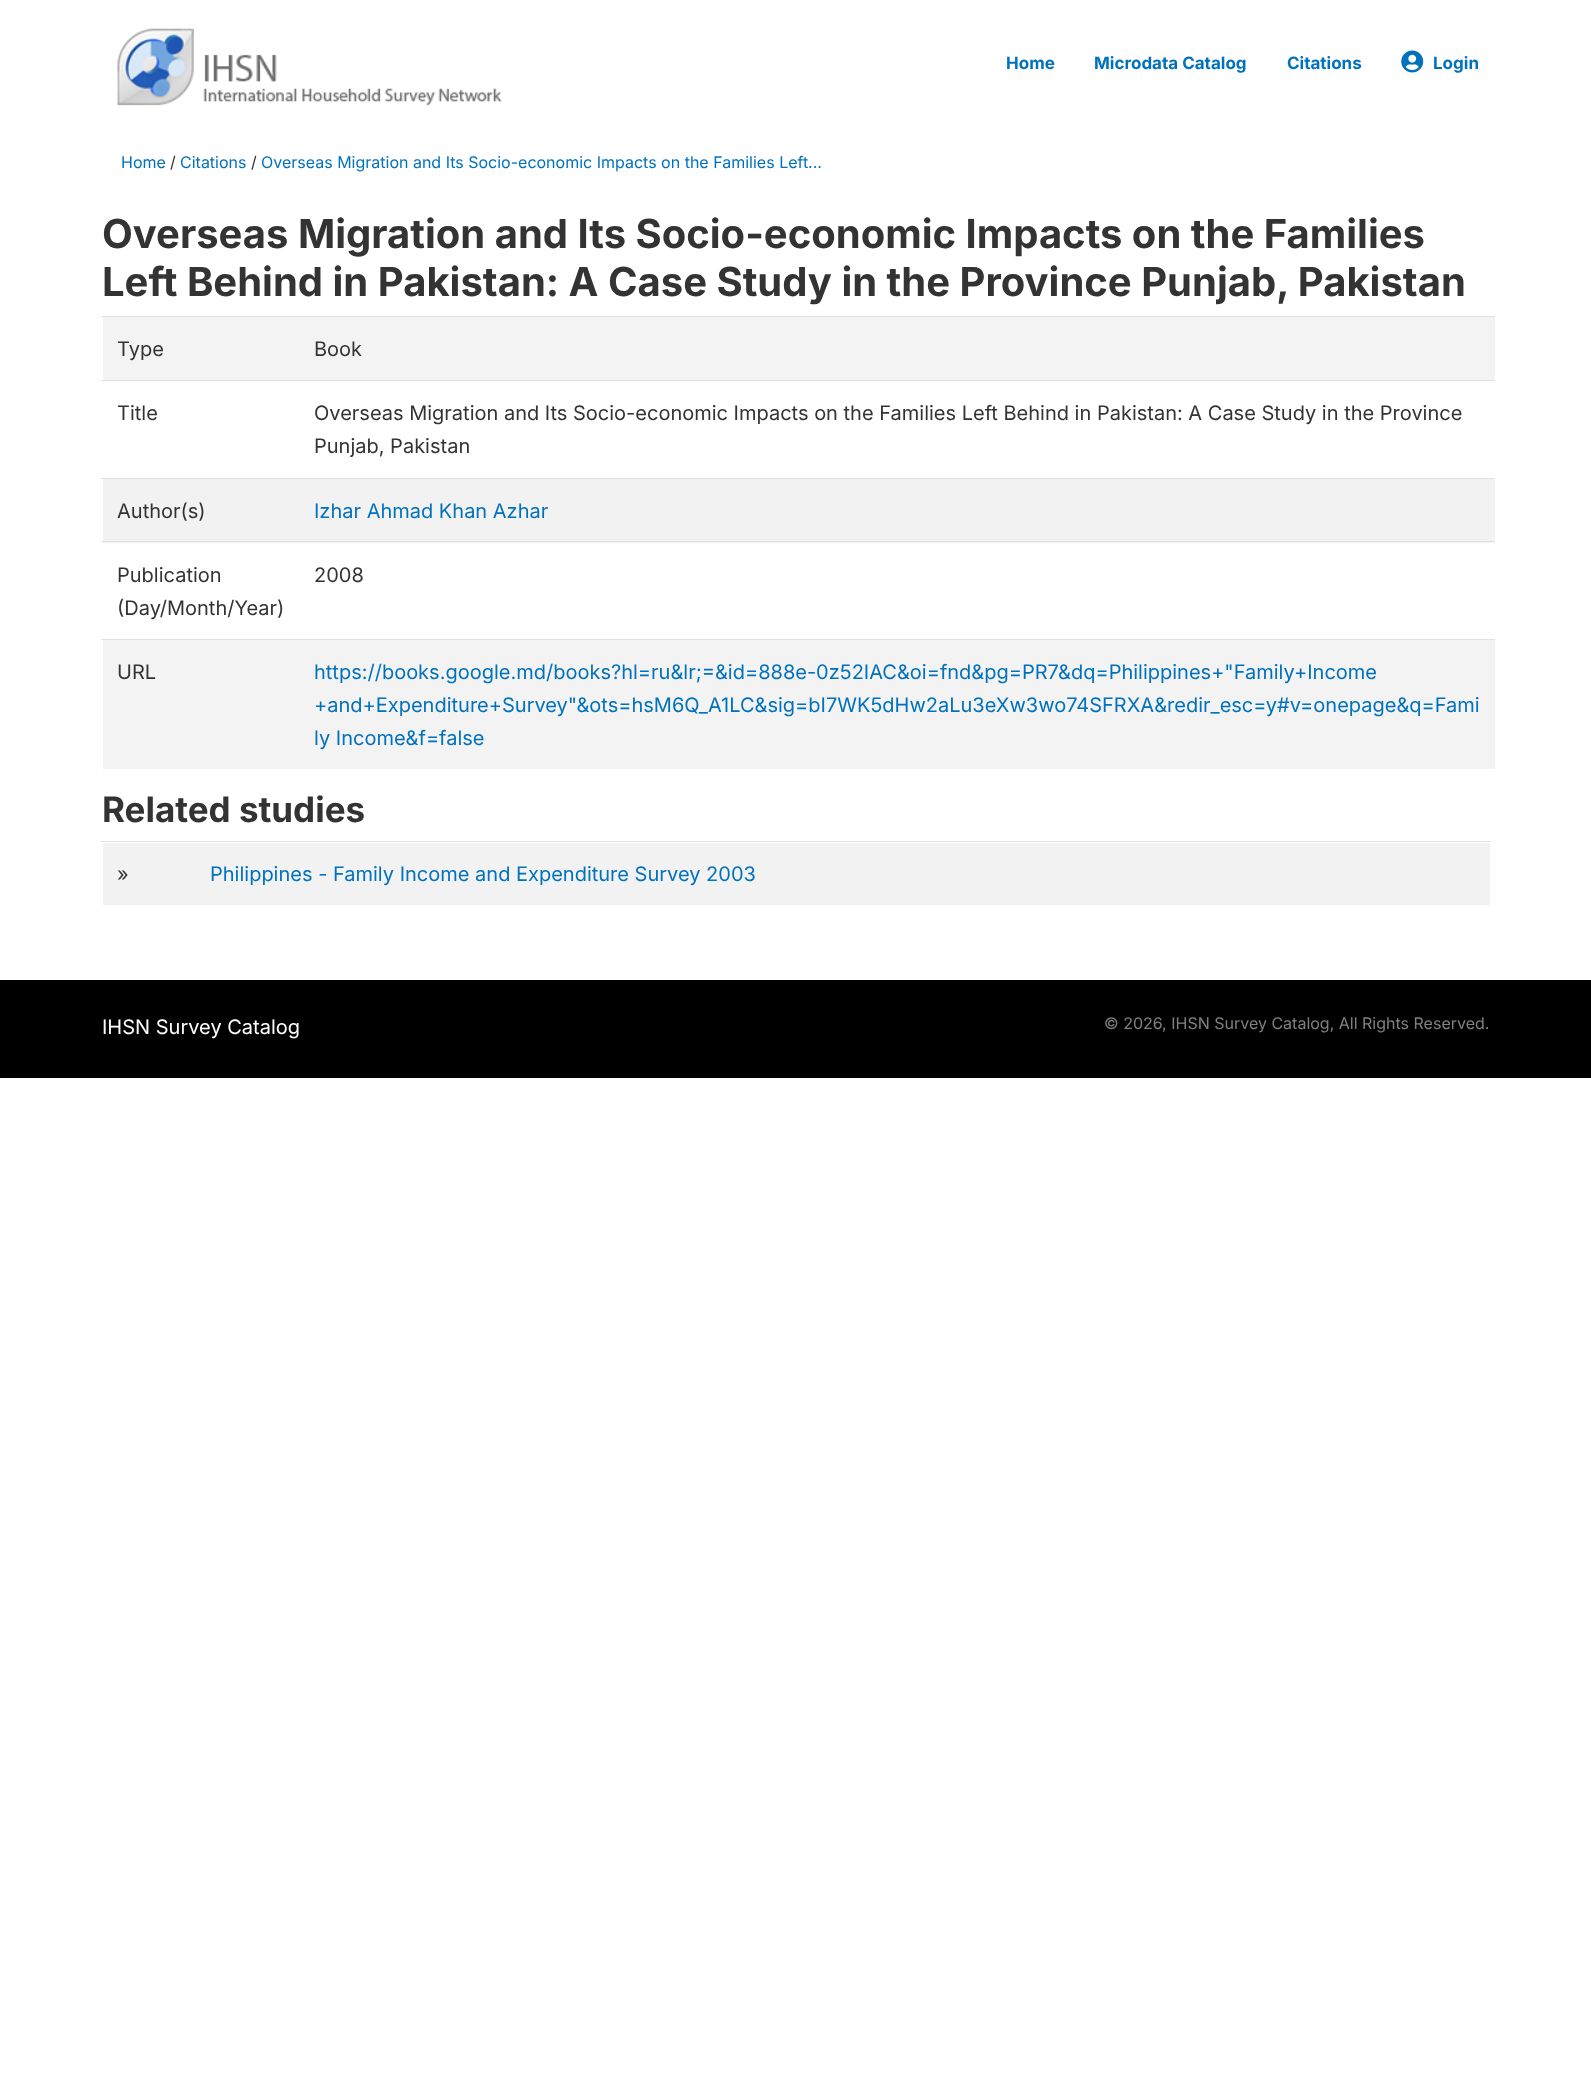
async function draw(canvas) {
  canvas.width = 1591
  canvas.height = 2097
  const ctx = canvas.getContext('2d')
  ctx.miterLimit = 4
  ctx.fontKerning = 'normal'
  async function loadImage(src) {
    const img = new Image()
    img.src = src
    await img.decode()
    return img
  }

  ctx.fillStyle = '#fff'
  ctx.fillRect(0, 0, 1591, 2097)
  ctx.drawImage(await loadImage('image0.png'), 117, 28, 385, 78)
  ctx.font = 'bold 17px Inter'
  ctx.fillStyle = '#0071bd'
  ctx.fillText('Home', 1006, 69)
  ctx.fillText('Microdata Catalog', 1094, 69)
  ctx.fillText('Citations', 1287, 69)
  ctx.drawImage(await loadImage('image1.png'), 1401, 50, 23, 23)
  ctx.fillText('Login', 1433, 69)
  ctx.font = '16px Inter'
  ctx.fillText('Home', 121, 168)
  ctx.fillStyle = '#333'
  ctx.fillText('/', 170, 168)
  ctx.fillStyle = '#0071bd'
  ctx.fillText('Citations', 180, 168)
  ctx.fillStyle = '#333'
  ctx.fillText('/', 251, 168)
  ctx.fillStyle = '#0071bd'
  ctx.fillText('Overseas Migration and Its Socio-economic Impacts on the Families Left...', 261, 168)
  ctx.font = 'bold 40px Inter'
  ctx.fillStyle = '#333'
  ctx.fillText('Overseas Migration and Its Socio-economic Impacts on the Families', 102, 248)
  ctx.fillText('Left Behind in Pakistan: A Case Study in the Province Punjab, Pakistan', 102, 296)
  ctx.fillStyle = '#f3f3f3'
  ctx.fillRect(103, 317, 1392, 63)
  ctx.font = '20px Inter'
  ctx.fillStyle = '#333'
  ctx.fillText('Type', 117, 356)
  ctx.fillStyle = '#dee2e6'
  ctx.fillRect(101, 316, 1394, 1)
  ctx.fillStyle = '#333'
  ctx.fillText('Book', 314, 356)
  ctx.fillText('Title', 117, 420)
  ctx.fillStyle = '#dee2e6'
  ctx.fillRect(101, 380, 1394, 1)
  ctx.fillStyle = '#333'
  ctx.fillText('Overseas Migration and Its Socio-economic Impacts on the Families Left Behind in Pakistan: A Case Study in the Province', 314, 420)
  ctx.fillText('Punjab, Pakistan', 314, 453)
  ctx.fillStyle = '#f2f2f2'
  ctx.fillRect(103, 479, 1392, 64)
  ctx.fillStyle = '#333'
  ctx.fillText('Author(s)', 117, 518)
  ctx.fillStyle = '#dee2e6'
  ctx.fillRect(101, 478, 1394, 1)
  ctx.fillStyle = '#0071bd'
  ctx.fillText('Izhar Ahmad Khan Azhar', 314, 518)
  ctx.fillStyle = '#333'
  ctx.fillText('Publication', 117, 582)
  ctx.fillText('(Day/Month/Year)', 117, 615)
  ctx.fillStyle = '#dee2e6'
  ctx.fillRect(101, 541, 1394, 1)
  ctx.fillStyle = '#333'
  ctx.fillText('2008', 314, 582)
  ctx.fillStyle = '#f3f3f3'
  ctx.fillRect(103, 640, 1392, 129)
  ctx.fillStyle = '#333'
  ctx.fillText('URL', 117, 679)
  ctx.fillStyle = '#dee2e6'
  ctx.fillRect(101, 639, 1394, 1)
  ctx.fillStyle = '#0071bd'
  ctx.fillText('https://books.google.md/books?hl=ru&lr;=&id=888e-0z52IAC&oi=fnd&pg=PR7&dq=Philippines+"Family+Income', 314, 679)
  ctx.fillText('+and+Expenditure+Survey"&ots=hsM6Q_A1LC&sig=bI7WK5dHw2aLu3eXw3wo74SFRXA&redir_esc=y#v=onepage&q=Fami', 314, 712)
  ctx.fillText('ly Income&f=false', 314, 745)
  ctx.font = 'bold 35px Inter'
  ctx.fillStyle = '#333'
  ctx.fillText('Related studies', 102, 822)
  ctx.fillStyle = '#f2f2f2'
  ctx.fillRect(103, 843, 1387, 62)
  ctx.font = '20px Inter'
  ctx.fillStyle = '#333'
  ctx.fillText('»', 117, 881)
  ctx.fillStyle = '#dee2e6'
  ctx.fillRect(101, 841, 1389, 1)
  ctx.fillStyle = '#0071bd'
  ctx.fillText('Philippines - Family Income and Expenditure Survey 2003', 210, 881)
  ctx.fillStyle = '#000'
  ctx.fillRect(0, 980, 1591, 98)
  ctx.fillStyle = '#fff'
  ctx.fillText('IHSN Survey Catalog', 102, 1034)
  ctx.font = '16px Inter'
  ctx.fillStyle = '#808080'
  ctx.fillText('© 2026, IHSN Survey Catalog, All Rights Reserved.', 1104, 1029)
}

draw(document.querySelector('canvas'))
